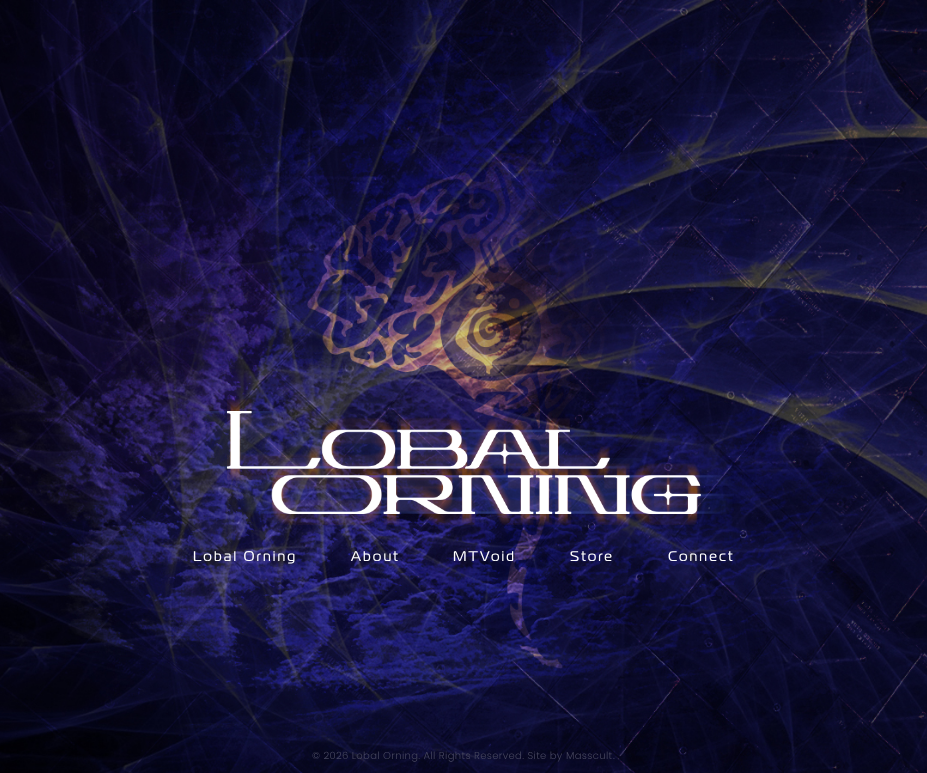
async function draw(canvas) {
  canvas.width = 927
  canvas.height = 773
  const ctx = canvas.getContext('2d')
  ctx.miterLimit = 4
  ctx.fontKerning = 'normal'
  async function loadImage(src) {
    const img = new Image()
    img.src = src
    await img.decode()
    return img
  }

  ctx.fillStyle = '#fff'
  ctx.fillRect(0, 0, 927, 773)
  ctx.drawImage(await loadImage('image0.png'), 0, 0, 927, 773)
  ctx.drawImage(await loadImage('image1.png'), 193, 399, 541, 126)
  ctx.letterSpacing = '2.1px'
  ctx.font = '14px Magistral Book'
  ctx.fillText('Lobal Orning', 193, 561)
  ctx.fillText('About', 351, 561)
  ctx.fillText('MTVoid', 453, 561)
  ctx.fillText('Store', 570, 561)
  ctx.fillText('Connect', 668, 561)
  ctx.letterSpacing = '0.35px'
  ctx.font = '300 10px Poppins'
  ctx.fillStyle = '#47475f'
  ctx.fillText('© 2026 Lobal Orning. All Rights Reserved. Site by', 312, 759)
  ctx.fillText('Masscult', 566, 759)
  ctx.fillStyle = '#494965'
  ctx.fillText('.', 613, 759)
}

draw(document.querySelector('canvas'))
